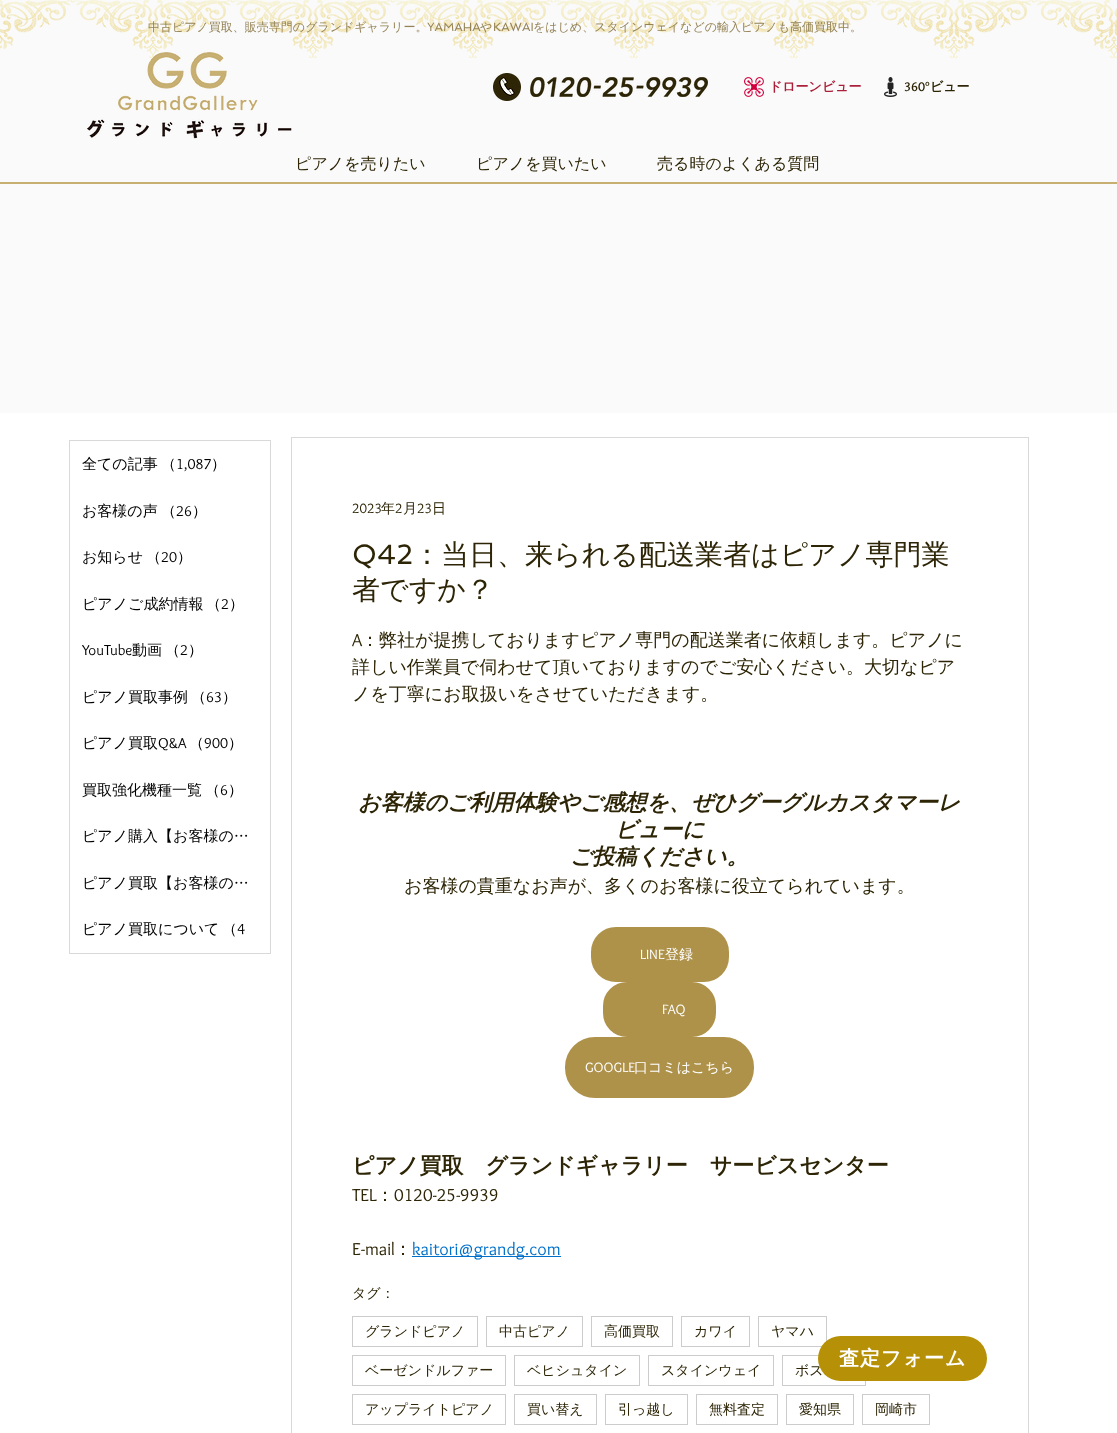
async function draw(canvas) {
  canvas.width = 1117
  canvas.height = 1433
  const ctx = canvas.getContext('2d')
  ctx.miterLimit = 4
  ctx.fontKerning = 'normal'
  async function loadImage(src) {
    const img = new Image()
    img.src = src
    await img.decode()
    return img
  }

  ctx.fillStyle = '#fff'
  ctx.fillRect(0, 0, 1117, 1433)
  ctx.fillStyle = '#fafafa'
  ctx.fillRect(0, 0, 1117, 182)
  ctx.fillStyle = '#c7af72'
  ctx.fillRect(0, 182, 1117, 2)
  ctx.drawImage(await loadImage('image0.png'), 0, 0, 73, 49)
  ctx.drawImage(await loadImage('image1.png'), 73, 0, 160, 58)
  ctx.drawImage(await loadImage('image1.png'), 233, 0, 160, 58)
  ctx.drawImage(await loadImage('image1.png'), 393, 0, 160, 58)
  ctx.drawImage(await loadImage('image1.png'), 554, 0, 160, 58)
  ctx.drawImage(await loadImage('image1.png'), 714, 0, 160, 58)
  ctx.drawImage(await loadImage('image1.png'), 874, 0, 160, 58)
  ctx.drawImage(await loadImage('image2.png'), 1034, 0, 83, 58)
  ctx.font = '500 12px WenQuanYi Zen Hei'
  ctx.fillStyle = '#958356'
  ctx.fillText('中古ピアノ買取、販売専門のグランドギャラリー。', 148, 31)
  ctx.font = '12px Spinnaker'
  ctx.fillText('YAMAHA', 427, 31)
  ctx.font = '500 12px WenQuanYi Zen Hei'
  ctx.fillText('や', 480, 31)
  ctx.font = '12px Spinnaker'
  ctx.fillText('KAWAI', 493, 31)
  ctx.font = '500 12px WenQuanYi Zen Hei'
  ctx.fillText('をはじめ、スタインウェイなどの輸入ピアノも高価買取中。', 533, 31)
  ctx.drawImage(await loadImage('image3.png'), 87, 52, 205, 87)
  ctx.drawImage(await loadImage('image4.png'), 493, 73, 28, 28)
  ctx.drawImage(await loadImage('image5.png'), 530, 77, 178, 20)
  ctx.drawImage(await loadImage('image6.png'), 744, 77, 20, 20)
  ctx.font = 'bold 13px WenQuanYi Zen Hei'
  ctx.fillStyle = '#aa1f39'
  ctx.fillText('ドローンビュー', 769, 91)
  ctx.drawImage(await loadImage('image7.png'), 884, 77, 13, 20)
  ctx.font = 'bold 13px Overlock'
  ctx.fillStyle = '#2d2506'
  ctx.fillText('360°', 904, 91)
  ctx.font = 'bold 13px WenQuanYi Zen Hei'
  ctx.fillText('ビュー', 930, 91)
  ctx.font = '500 16px WenQuanYi Zen Hei'
  ctx.fillText('ピアノを売りたい', 295, 169)
  ctx.fillText('ピアノを買いたい', 476, 169)
  ctx.fillText('売る時のよくある質問', 657, 169)
  ctx.fillStyle = '#fafafa'
  ctx.fillRect(0, 184, 1117, 229)
  ctx.strokeStyle = '#d9d9d9'
  ctx.strokeRect(69.5, 440.5, 201, 513)
  ctx.font = '500 15px WenQuanYi Zen Hei'
  ctx.fillStyle = '#000'
  ctx.fillText('全ての記事', 82, 469)
  ctx.fillText('（', 161, 469)
  ctx.font = '15px Overlock'
  ctx.fillText('1,087', 176, 469)
  ctx.font = '500 15px WenQuanYi Zen Hei'
  ctx.fillText('）', 211, 469)
  ctx.fillText('お客様の声', 82, 516)
  ctx.fillText('（', 161, 516)
  ctx.font = '15px Overlock'
  ctx.fillText('26', 176, 516)
  ctx.font = '500 15px WenQuanYi Zen Hei'
  ctx.fillText('）', 192, 516)
  ctx.fillText('お知らせ', 82, 562)
  ctx.fillText('（', 146, 562)
  ctx.font = '15px Overlock'
  ctx.fillText('20', 161, 562)
  ctx.font = '500 15px WenQuanYi Zen Hei'
  ctx.fillText('）', 177, 562)
  ctx.fillText('ピアノご成約情報', 82, 609)
  ctx.fillText('（', 206, 609)
  ctx.font = '15px Overlock'
  ctx.fillText('2', 221, 609)
  ctx.font = '500 15px WenQuanYi Zen Hei'
  ctx.fillText('）', 229, 609)
  ctx.font = '15px Overlock'
  ctx.fillText('YouTube', 82, 655)
  ctx.font = '500 15px WenQuanYi Zen Hei'
  ctx.fillText('動画', 132, 655)
  ctx.fillText('（', 165, 655)
  ctx.font = '15px Overlock'
  ctx.fillText('2', 180, 655)
  ctx.font = '500 15px WenQuanYi Zen Hei'
  ctx.fillText('）', 188, 655)
  ctx.fillText('ピアノ買取事例', 82, 702)
  ctx.fillText('（', 191, 702)
  ctx.font = '15px Overlock'
  ctx.fillText('63', 206, 702)
  ctx.font = '500 15px WenQuanYi Zen Hei'
  ctx.fillText('）', 222, 702)
  ctx.fillText('ピアノ買取', 82, 748)
  ctx.font = '15px Overlock'
  ctx.fillText('Q&A', 158, 748)
  ctx.font = '500 15px WenQuanYi Zen Hei'
  ctx.fillText('（', 189, 748)
  ctx.font = '15px Overlock'
  ctx.fillText('900', 204, 748)
  ctx.font = '500 15px WenQuanYi Zen Hei'
  ctx.fillText('）', 228, 748)
  ctx.fillText('買取強化機種一覧', 82, 795)
  ctx.fillText('（', 205, 795)
  ctx.font = '15px Overlock'
  ctx.fillText('6', 220, 795)
  ctx.font = '500 15px WenQuanYi Zen Hei'
  ctx.fillText('）', 228, 795)
  ctx.fillText('ピアノ購入【お客様の…', 82, 841)
  ctx.fillText('ピアノ買取【お客様の…', 82, 888)
  ctx.fillText('ピアノ買取について', 82, 934)
  ctx.fillText('（', 222, 934)
  ctx.font = '15px Overlock'
  ctx.fillText('4', 237, 934)
  ctx.strokeRect(291.5, 437.5, 737, 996)
  ctx.font = '14px Overlock'
  ctx.fillStyle = '#2d2506'
  ctx.fillText('2023', 352, 513)
  ctx.font = '500 14px WenQuanYi Zen Hei'
  ctx.fillText('年', 381, 513)
  ctx.font = '14px Overlock'
  ctx.fillText('2', 395, 513)
  ctx.font = '500 14px WenQuanYi Zen Hei'
  ctx.fillText('月', 403, 513)
  ctx.font = '14px Overlock'
  ctx.fillText('23', 417, 513)
  ctx.font = '500 14px WenQuanYi Zen Hei'
  ctx.fillText('日', 432, 513)
  ctx.font = '28px Spinnaker'
  ctx.fillText('Q42', 352, 564)
  ctx.font = '500 28px WenQuanYi Zen Hei'
  ctx.fillText('：当日、来られる配送業者はピアノ専門業', 413, 564)
  ctx.fillText('者ですか？', 352, 599)
  ctx.font = '18px Overlock'
  ctx.fillText('A', 352, 646)
  ctx.font = '500 18px WenQuanYi Zen Hei'
  ctx.fillText('：弊社が提携しておりますピアノ専門の配送業者に依頼します。ピアノに', 361, 646)
  ctx.fillText('詳しい作業員で伺わせて頂いておりますのでご安心ください。大切なピア', 352, 673)
  ctx.fillText('ノを丁寧にお取扱いをさせていただきます。', 352, 700)
  ctx.font = 'italic bold 22px WenQuanYi Zen Hei'
  ctx.fillText('お客様のご利用体験やご感想を、ぜひグーグルカスタマーレ', 358, 810)
  ctx.fillText('ビューに', 615, 837)
  ctx.fillText('ご投稿ください。', 570, 864)
  ctx.font = '500 18px WenQuanYi Zen Hei'
  ctx.fillText('お客様の貴重なお声が、多くのお客様に役立てられています。', 404, 892)
  ctx.fillStyle = '#af924a'
  ctx.beginPath()
  ctx.roundRect(593.5, 929.5, 133, 50, 22.5)
  ctx.fill()
  ctx.strokeStyle = '#af924a'
  ctx.lineWidth = 5
  ctx.stroke()
  ctx.font = '14px Overlock'
  ctx.fillStyle = '#fff'
  ctx.fillText('LINE', 640, 959)
  ctx.font = '500 14px WenQuanYi Zen Hei'
  ctx.fillText('登録', 665, 959)
  ctx.fillStyle = '#af924a'
  ctx.beginPath()
  ctx.roundRect(605.5, 984.5, 108, 50, 21.5)
  ctx.fill()
  ctx.stroke()
  ctx.font = '14px Overlock'
  ctx.fillStyle = '#fff'
  ctx.fillText('FAQ', 662, 1014)
  ctx.fillStyle = '#af924a'
  ctx.beginPath()
  ctx.roundRect(569, 1041, 181, 53, 26)
  ctx.fill()
  ctx.lineWidth = 8
  ctx.stroke()
  ctx.fillStyle = '#fff'
  ctx.fillText('GOOGLE', 585, 1072)
  ctx.font = '500 14px WenQuanYi Zen Hei'
  ctx.fillText('口コミはこちら', 634, 1072)
  ctx.font = 'bold 22px WenQuanYi Zen Hei'
  ctx.fillStyle = '#2d2506'
  ctx.fillText('ピアノ買取　グランドギャラリー　サービスセンター', 352, 1173)
  ctx.font = '18px Overlock'
  ctx.fillText('TEL', 352, 1201)
  ctx.font = '500 18px WenQuanYi Zen Hei'
  ctx.fillText('：', 376, 1201)
  ctx.font = '18px Overlock'
  ctx.fillText('0120-25-9939', 394, 1201)
  ctx.fillText('E-mail', 352, 1255)
  ctx.font = '500 18px WenQuanYi Zen Hei'
  ctx.fillText('：', 394, 1255)
  ctx.fillStyle = '#0070c9'
  ctx.fillRect(412, 1256, 149, 1)
  ctx.font = '18px Overlock'
  ctx.fillText('kaitori@grandg.com', 412, 1255)
  ctx.font = '500 14px WenQuanYi Zen Hei'
  ctx.fillStyle = '#2d2506'
  ctx.fillText('タグ：', 352, 1298)
  ctx.strokeStyle = '#ccc'
  ctx.lineWidth = 1
  ctx.strokeRect(352.5, 1316.5, 125, 30)
  ctx.fillText('グランドピアノ', 365, 1336)
  ctx.strokeRect(486.5, 1316.5, 96, 30)
  ctx.fillText('中古ピアノ', 499, 1336)
  ctx.strokeRect(591.5, 1316.5, 81, 30)
  ctx.fillText('高価買取', 604, 1336)
  ctx.strokeRect(681.5, 1316.5, 68, 30)
  ctx.fillText('カワイ', 694, 1336)
  ctx.strokeRect(758.5, 1316.5, 68, 30)
  ctx.fillText('ヤマハ', 771, 1336)
  ctx.strokeRect(352.5, 1355.5, 153, 30)
  ctx.fillText('ベーゼンドルファー', 365, 1375)
  ctx.strokeRect(514.5, 1355.5, 125, 30)
  ctx.fillText('ベヒシュタイン', 527, 1375)
  ctx.strokeRect(648.5, 1355.5, 125, 30)
  ctx.fillText('スタインウェイ', 661, 1375)
  ctx.strokeRect(782.5, 1355.5, 83, 30)
  ctx.fillText('ボス', 795, 1375)
  ctx.strokeRect(352.5, 1394.5, 153, 30)
  ctx.fillText('アップライトピアノ', 365, 1414)
  ctx.strokeRect(514.5, 1394.5, 82, 30)
  ctx.fillText('買い替え', 527, 1414)
  ctx.strokeRect(605.5, 1394.5, 82, 30)
  ctx.fillText('引っ越し', 618, 1414)
  ctx.strokeRect(696.5, 1394.5, 81, 30)
  ctx.fillText('無料査定', 709, 1414)
  ctx.strokeRect(786.5, 1394.5, 67, 30)
  ctx.fillText('愛知県', 799, 1414)
  ctx.strokeRect(862.5, 1394.5, 67, 30)
  ctx.fillText('岡崎市', 875, 1414)
  ctx.fillStyle = '#b69107'
  ctx.beginPath()
  ctx.roundRect(818, 1336, 169, 45, 22.5)
  ctx.fill()
  ctx.letterSpacing = '1px'
  ctx.font = 'bold 20px WenQuanYi Zen Hei'
  ctx.fillStyle = '#fff'
  ctx.fillText('査定フォーム', 839, 1365)
}

draw(document.querySelector('canvas'))
